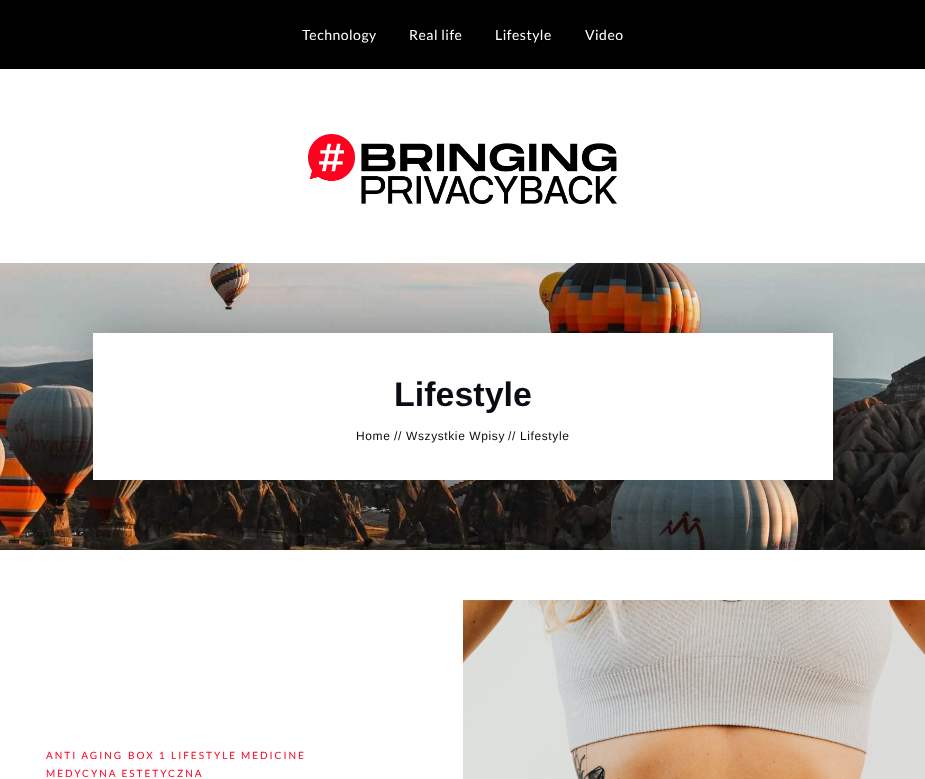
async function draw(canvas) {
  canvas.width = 925
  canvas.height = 779
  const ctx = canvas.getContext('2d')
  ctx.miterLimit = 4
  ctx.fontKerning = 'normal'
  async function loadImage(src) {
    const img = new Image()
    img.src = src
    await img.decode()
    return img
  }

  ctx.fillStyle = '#fff'
  ctx.fillRect(0, 0, 925, 779)
  ctx.fillStyle = '#000'
  ctx.fillRect(0, 0, 925, 69)
  ctx.letterSpacing = '0.5px'
  ctx.font = '14px Lato'
  ctx.fillStyle = '#fff'
  ctx.fillText('Technology', 302, 40)
  ctx.fillText('Real life', 409, 40)
  ctx.fillText('Lifestyle', 495, 40)
  ctx.fillText('Video', 585, 40)
  ctx.drawImage(await loadImage('image0.png'), 308, 134, 309, 70)
  ctx.drawImage(await loadImage('image1.png'), 0, 263, 925, 287)
  ctx.fillStyle = '#00000029'
  ctx.filter = 'blur(24.5px)'
  ctx.beginPath()
  ctx.rect(93, 336, 740, 147)
  ctx.fill()
  ctx.filter = 'none'
  ctx.fillStyle = '#fff'
  ctx.fillRect(93, 333, 740, 147)
  ctx.save()
  ctx.beginPath()
  ctx.moveTo(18, 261)
  ctx.lineTo(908, 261)
  ctx.lineTo(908, 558)
  ctx.lineTo(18, 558)
  ctx.closePath()
  ctx.moveTo(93, 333)
  ctx.lineTo(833, 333)
  ctx.lineTo(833, 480)
  ctx.lineTo(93, 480)
  ctx.closePath()
  ctx.clip('evenodd')
  ctx.fillStyle = '#00000029'
  ctx.filter = 'blur(24.5px)'
  ctx.beginPath()
  ctx.rect(93, 336, 740, 147)
  ctx.fill()
  ctx.filter = 'none'
  ctx.restore()
  ctx.letterSpacing = '0px'
  ctx.font = 'bold 34px Liberation Sans'
  ctx.fillStyle = '#0a0c13'
  ctx.fillText('Lifestyle', 394, 406)
  ctx.letterSpacing = '0.6px'
  ctx.font = '12px Liberation Sans'
  ctx.fillText('Home', 356, 440)
  ctx.fillText('//', 394, 440)
  ctx.fillText('Wszystkie Wpisy', 406, 440)
  ctx.fillText('//', 508, 440)
  ctx.fillText('Lifestyle', 520, 440)
  ctx.letterSpacing = '2px'
  ctx.font = '10px Lato'
  ctx.fillStyle = '#ff001e'
  ctx.fillText('ANTI AGING', 46, 759)
  ctx.fillText('BOX 1', 128, 759)
  ctx.fillText('LIFESTYLE', 171, 759)
  ctx.fillText('MEDICINE', 241, 759)
  ctx.fillText('MEDYCYNA ESTETYCZNA', 46, 777)
  ctx.drawImage(await loadImage('image2.png'), 463, 600, 462, 179)
}

draw(document.querySelector('canvas'))
